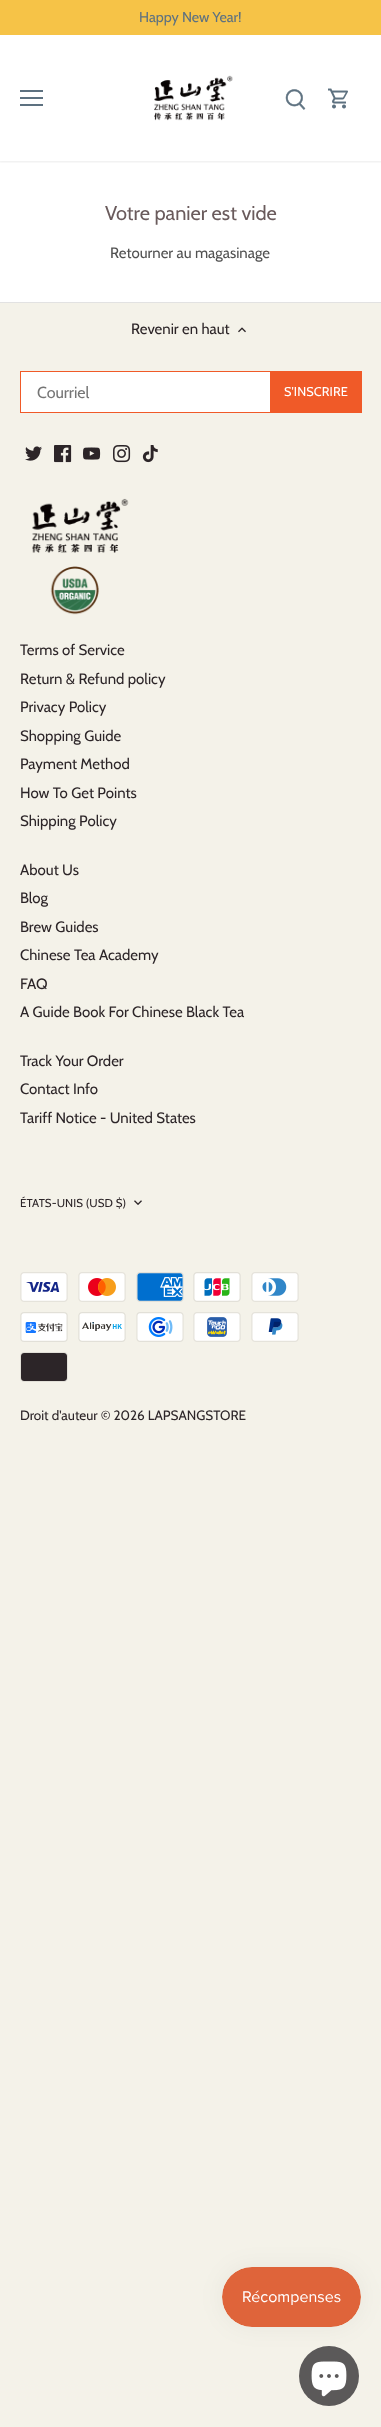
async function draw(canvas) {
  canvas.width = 381
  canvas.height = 2427
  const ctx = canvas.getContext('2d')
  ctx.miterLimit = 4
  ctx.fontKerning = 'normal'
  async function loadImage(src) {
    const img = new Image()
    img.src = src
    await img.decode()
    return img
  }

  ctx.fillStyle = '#f4f2e9'
  ctx.fillRect(0, 0, 381, 2427)
  ctx.fillStyle = '#fff'
  ctx.fillRect(0, 35, 381, 267)
  ctx.save()
  ctx.beginPath()
  ctx.rect(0, 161, 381, 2)
  ctx.clip()
  ctx.fillStyle = '#00000014'
  ctx.filter = 'blur(1.5px)'
  ctx.beginPath()
  ctx.rect(-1, 34, 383, 128)
  ctx.fill()
  ctx.filter = 'none'
  ctx.restore()
  ctx.fillStyle = '#f6c347'
  ctx.fillRect(0, 0, 381, 35)
  ctx.font = '14.25px Cabin'
  ctx.fillStyle = '#5d7180'
  ctx.fillText('Happy New Year!', 139, 22)
  ctx.fillRect(20, 90, 23, 2)
  ctx.fillRect(20, 97, 23, 2)
  ctx.fillRect(20, 104, 23, 2)
  ctx.drawImage(await loadImage('image0.png'), 154, 75, 79, 46)
  ctx.drawImage(await loadImage('image1.png'), 285, 89, 21, 21)
  ctx.drawImage(await loadImage('image2.png'), 328, 88, 20, 21)
  ctx.font = '20px Cabin'
  ctx.fillStyle = '#6a5b5c'
  ctx.fillText('Votre panier est vide', 105, 220)
  ctx.font = '15px Cabin'
  ctx.fillStyle = '#515151'
  ctx.fillText('Retourner au magasinage', 110, 258)
  ctx.fillStyle = '#e2e2e2'
  ctx.fillRect(0, 302, 381, 1)
  ctx.fillStyle = '#2c2528'
  ctx.fillText('Revenir en haut', 131, 334)
  ctx.drawImage(await loadImage('image3.png'), 238, 327, 8, 6)
  ctx.fillStyle = '#fff'
  ctx.fillRect(21, 372, 249, 40)
  ctx.strokeStyle = '#f05a28'
  ctx.strokeRect(20.5, 371.5, 340, 41)
  ctx.font = '16px Cabin'
  ctx.fillStyle = '#757575'
  ctx.fillText('Courriel', 37, 398)
  ctx.fillStyle = '#f05a28'
  ctx.fillRect(270, 371, 92, 42)
  ctx.letterSpacing = '0.1px'
  ctx.font = '12.75px Cabin'
  ctx.fillStyle = '#fff'
  ctx.fillText('S\'INSCRIRE', 284, 396)
  ctx.drawImage(await loadImage('image4.png'), 25, 446, 17, 15)
  ctx.drawImage(await loadImage('image5.png'), 54, 445, 18, 18)
  ctx.drawImage(await loadImage('image6.png'), 83, 447, 18, 13)
  ctx.drawImage(await loadImage('image7.png'), 113, 445, 18, 18)
  ctx.drawImage(await loadImage('image8.png'), 142, 445, 16, 18)
  ctx.drawImage(await loadImage('image9.png'), 32, 498, 97, 117)
  ctx.letterSpacing = '0px'
  ctx.font = '15px Cabin'
  ctx.fillStyle = '#2c2528'
  ctx.fillText('Terms of Service', 20, 655)
  ctx.fillText('Return & Refund policy', 20, 684)
  ctx.fillText('Privacy Policy', 20, 712)
  ctx.fillText('Shopping Guide', 20, 741)
  ctx.fillText('Payment Method', 20, 769)
  ctx.fillText('How To Get Points', 20, 798)
  ctx.fillText('Shipping Policy', 20, 826)
  ctx.fillText('About Us', 20, 875)
  ctx.fillText('Blog', 20, 903)
  ctx.fillText('Brew Guides', 20, 932)
  ctx.fillText('Chinese Tea Academy', 20, 960)
  ctx.fillText('FAQ', 20, 989)
  ctx.fillText('A Guide Book For Chinese Black Tea', 20, 1017)
  ctx.fillText('Track Your Order', 20, 1066)
  ctx.fillText('Contact Info', 20, 1094)
  ctx.fillText('Tariff Notice - United States', 20, 1123)
  ctx.letterSpacing = '0.1px'
  ctx.font = '11.5px Cabin'
  ctx.fillText('ÉTATS-UNIS (USD $)', 20, 1207)
  ctx.drawImage(await loadImage('image10.png'), 134, 1200, 8, 5)
  ctx.drawImage(await loadImage('image11.png'), 20, 1272, 48, 30)
  ctx.drawImage(await loadImage('image12.png'), 78, 1272, 48, 30)
  ctx.drawImage(await loadImage('image13.png'), 136, 1272, 48, 30)
  ctx.drawImage(await loadImage('image14.png'), 193, 1272, 48, 30)
  ctx.drawImage(await loadImage('image15.png'), 251, 1272, 48, 30)
  ctx.drawImage(await loadImage('image16.png'), 20, 1312, 48, 30)
  ctx.drawImage(await loadImage('image17.png'), 78, 1312, 48, 30)
  ctx.drawImage(await loadImage('image18.png'), 136, 1312, 48, 30)
  ctx.drawImage(await loadImage('image19.png'), 193, 1312, 48, 30)
  ctx.drawImage(await loadImage('image20.png'), 251, 1312, 48, 30)
  ctx.drawImage(await loadImage('image21.png'), 20, 1352, 48, 30)
  ctx.letterSpacing = '0px'
  ctx.font = '13.5px Cabin'
  ctx.fillText('Droit d\'auteur © 2026 LAPSANGSTORE', 20, 1420)
  ctx.fillStyle = '#5b5959'
  ctx.beginPath()
  ctx.arc(329, 2376, 30, 0, 2 * Math.PI)
  ctx.fill()
  ctx.drawImage(await loadImage('image23.png'), 311, 2361, 36, 36)
  ctx.fillStyle = '#0000000d'
  ctx.filter = 'blur(12.5px)'
  ctx.beginPath()
  ctx.roundRect(222, 2267, 139, 60, 30)
  ctx.fill()
  ctx.filter = 'none'
  ctx.drawImage(await loadImage('image22.png'), 222, 2267, 139, 60)
}

draw(document.querySelector('canvas'))
